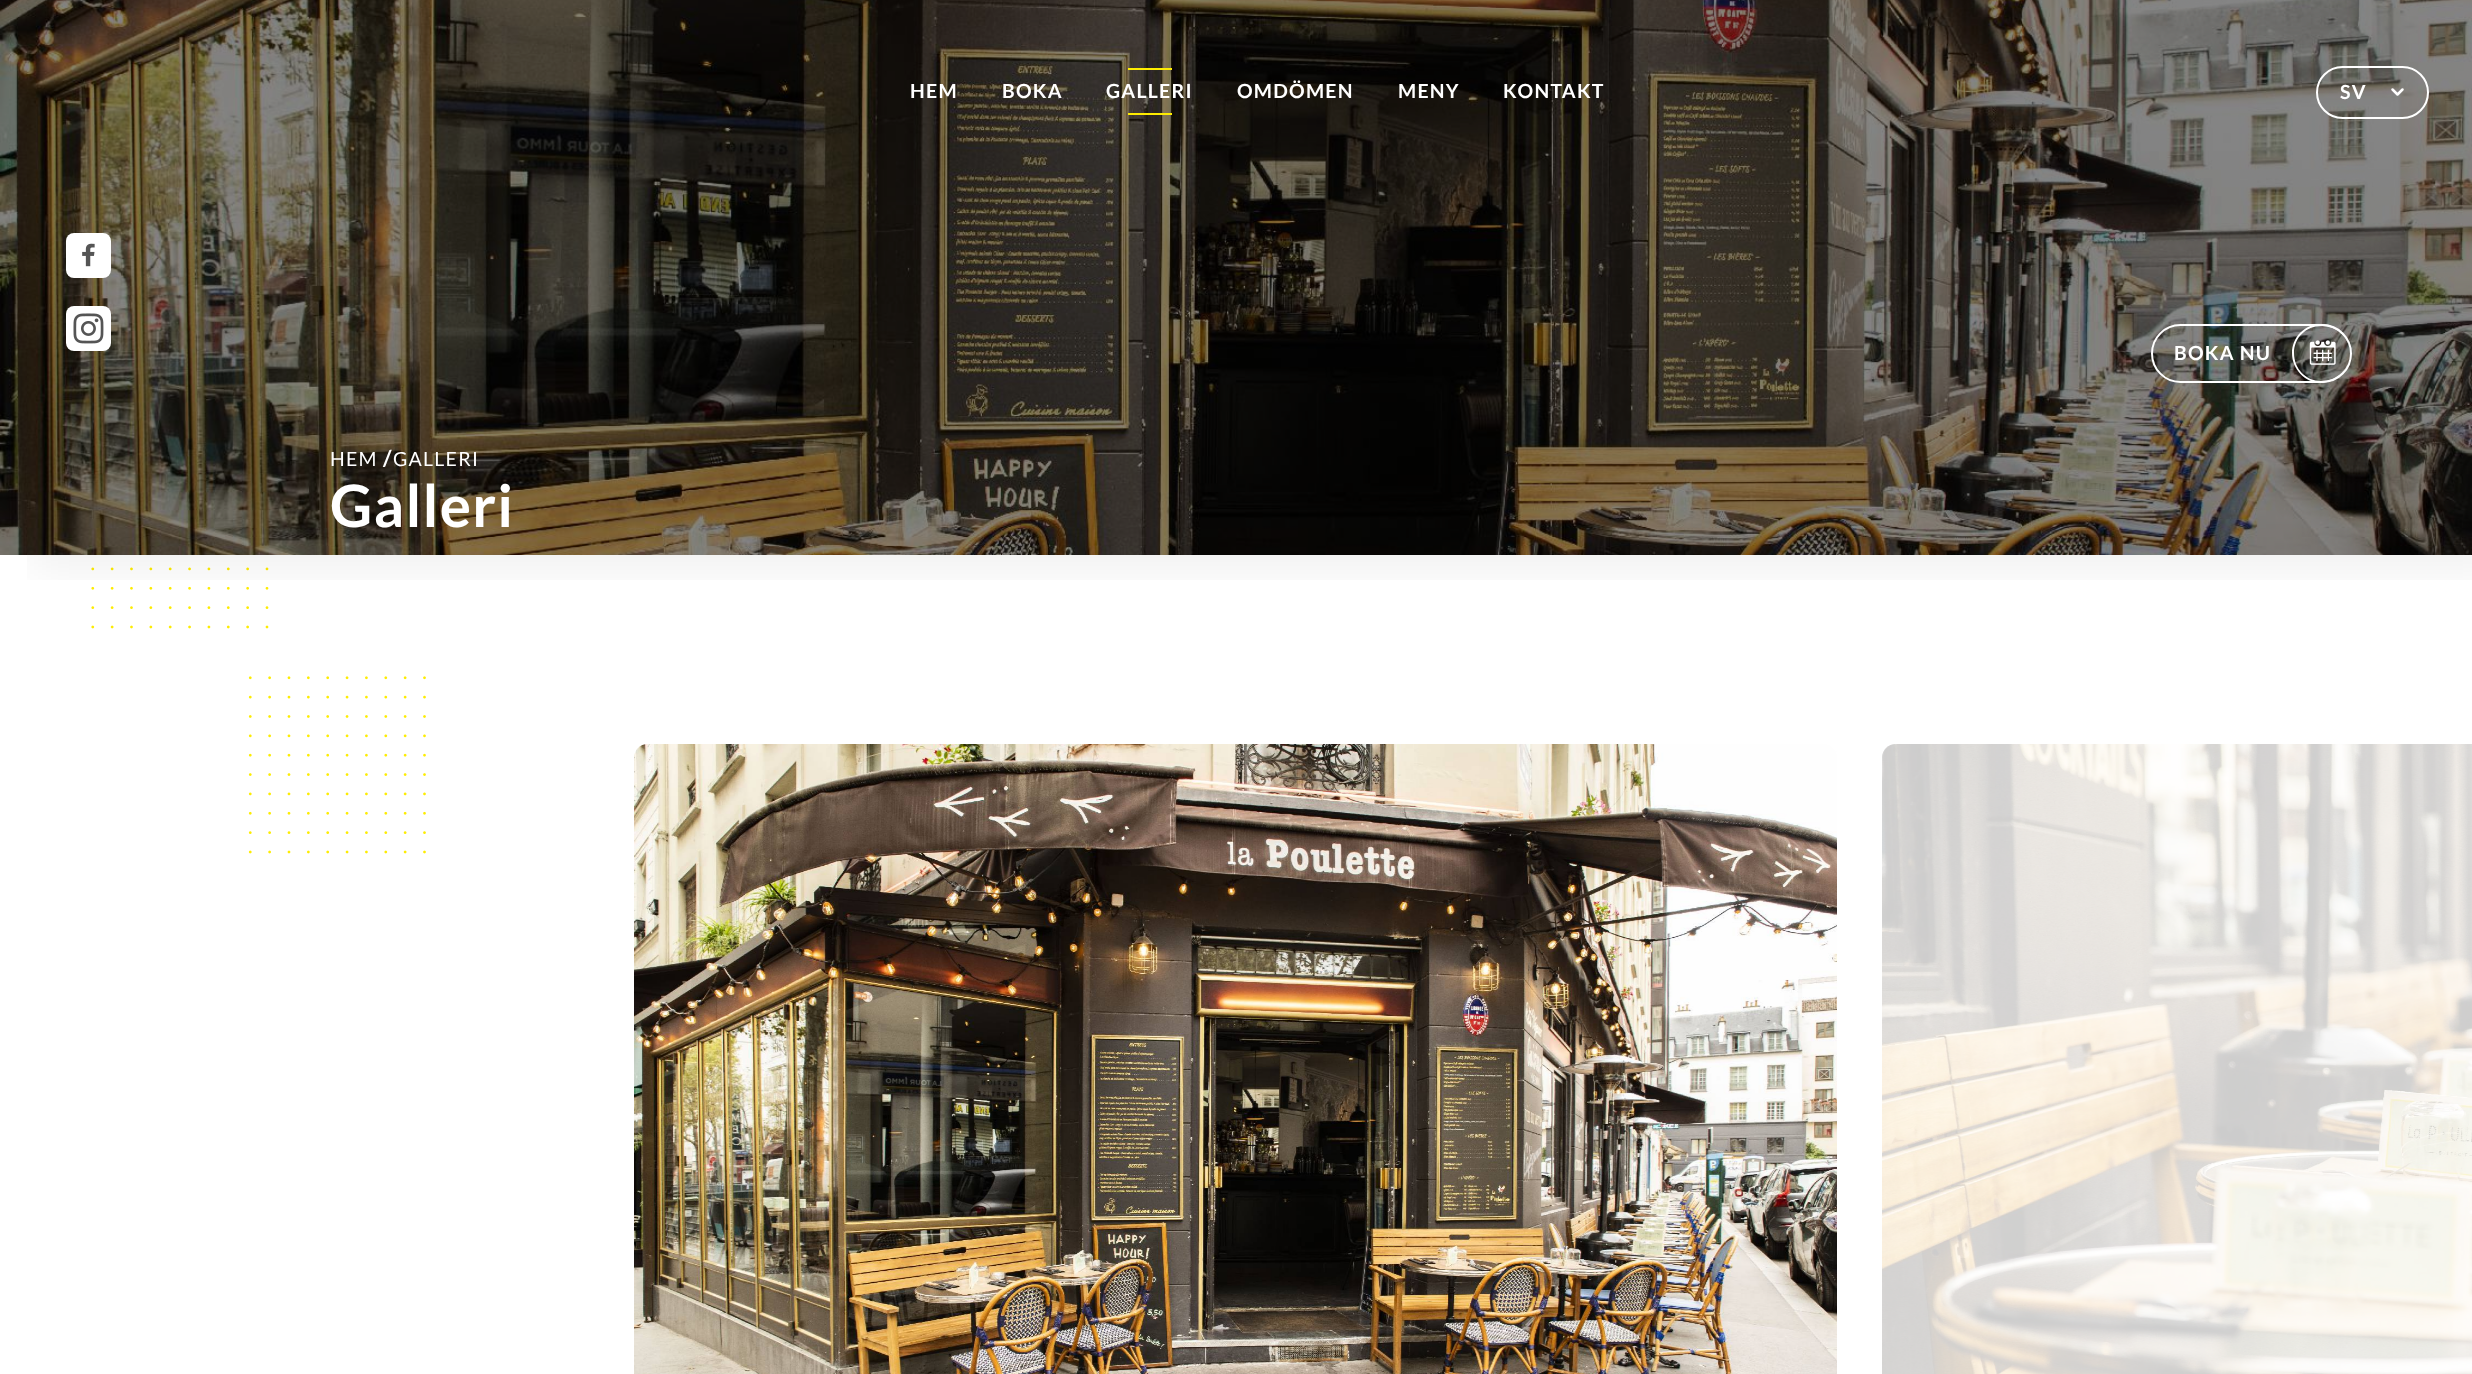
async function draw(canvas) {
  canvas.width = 2472
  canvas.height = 1374
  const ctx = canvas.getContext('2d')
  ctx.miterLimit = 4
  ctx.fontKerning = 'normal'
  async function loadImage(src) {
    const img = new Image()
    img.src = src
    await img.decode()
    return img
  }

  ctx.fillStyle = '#fff'
  ctx.fillRect(0, 0, 2472, 1374)
  ctx.drawImage(await loadImage('image0.png'), 0, 0, 2472, 555)
  ctx.drawImage(await loadImage('image4.png'), 91, 567, 178, 62)
  ctx.save()
  ctx.beginPath()
  ctx.rect(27, 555, 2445, 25)
  ctx.clip()
  ctx.fillStyle = '#0000000f'
  ctx.filter = 'blur(22.5px)'
  ctx.beginPath()
  ctx.rect(30, 15, 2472, 555)
  ctx.fill()
  ctx.filter = 'none'
  ctx.restore()
  ctx.letterSpacing = '1.25px'
  ctx.font = 'bold 19.5px Lato'
  ctx.fillText('HEM', 910, 98)
  ctx.fillText('BOKA', 1002, 98)
  ctx.fillStyle = '#fdec01'
  ctx.fillRect(1128, 68, 44, 2)
  ctx.fillStyle = '#fff'
  ctx.fillText('GALLERI', 1106, 98)
  ctx.fillStyle = '#fdec01'
  ctx.fillRect(1128, 113, 44, 2)
  ctx.fillStyle = '#fff'
  ctx.fillText('OMDÖMEN', 1237, 98)
  ctx.fillText('MENY', 1398, 98)
  ctx.fillText('KONTAKT', 1503, 98)
  ctx.beginPath()
  ctx.roundRect(2317, 67, 111, 51, 25.5)
  ctx.strokeStyle = '#fff'
  ctx.lineWidth = 2
  ctx.stroke()
  ctx.fillText('SV', 2340, 99)
  ctx.beginPath()
  ctx.moveTo(2392.5, 89.5)
  ctx.lineTo(2397.5, 94.5)
  ctx.lineTo(2402.5, 89.5)
  ctx.lineWidth = 2.5
  ctx.lineCap = 'round'
  ctx.lineJoin = 'round'
  ctx.stroke()
  ctx.beginPath()
  ctx.roundRect(66, 233, 45, 45, 8)
  ctx.fill()
  ctx.drawImage(await loadImage('image1.png'), 82, 243, 13, 24)
  ctx.beginPath()
  ctx.roundRect(66, 306, 45, 45, 8)
  ctx.fill()
  ctx.drawImage(await loadImage('image2.png'), 73, 313, 31, 31)
  ctx.beginPath()
  ctx.roundRect(2152, 325, 199, 57, 28.5)
  ctx.lineWidth = 2
  ctx.lineJoin = 'miter'
  ctx.stroke()
  ctx.fillText('BOKA NU', 2174, 360)
  ctx.beginPath()
  ctx.moveTo(2321, 324)
  ctx.bezierCurveTo(2337, 324, 2350, 337, 2350, 353)
  ctx.bezierCurveTo(2350, 369, 2337, 383, 2321, 383)
  ctx.bezierCurveTo(2305, 383, 2292, 369, 2292, 353)
  ctx.bezierCurveTo(2292, 337, 2305, 324, 2321, 324)
  ctx.closePath()
  ctx.moveTo(2321, 326)
  ctx.bezierCurveTo(2337, 326, 2350, 338, 2350, 353)
  ctx.bezierCurveTo(2350, 369, 2337, 381, 2321, 381)
  ctx.bezierCurveTo(2306, 381, 2294, 369, 2294, 353)
  ctx.bezierCurveTo(2294, 338, 2306, 326, 2321, 326)
  ctx.closePath()
  ctx.fill('evenodd')
  ctx.drawImage(await loadImage('image3.png'), 2309, 340, 27, 25)
  ctx.font = '19.5px Lato'
  ctx.fillText('HEM', 330, 466)
  ctx.font = 'bold 22px Lato'
  ctx.fillText('/', 383, 466)
  ctx.font = '19.5px Lato'
  ctx.fillText('GALLERI', 393, 466)
  ctx.font = 'bold 58.5px Lato'
  ctx.fillText('Galleri', 330, 527)
  ctx.drawImage(await loadImage('image5.png'), 248, 676, 178, 178)
  ctx.drawImage(await loadImage('image6.png'), 634, 744, 1203, 630)
  ctx.drawImage(await loadImage('image7.png'), 1882, 744, 590, 630)
}

draw(document.querySelector('canvas'))
